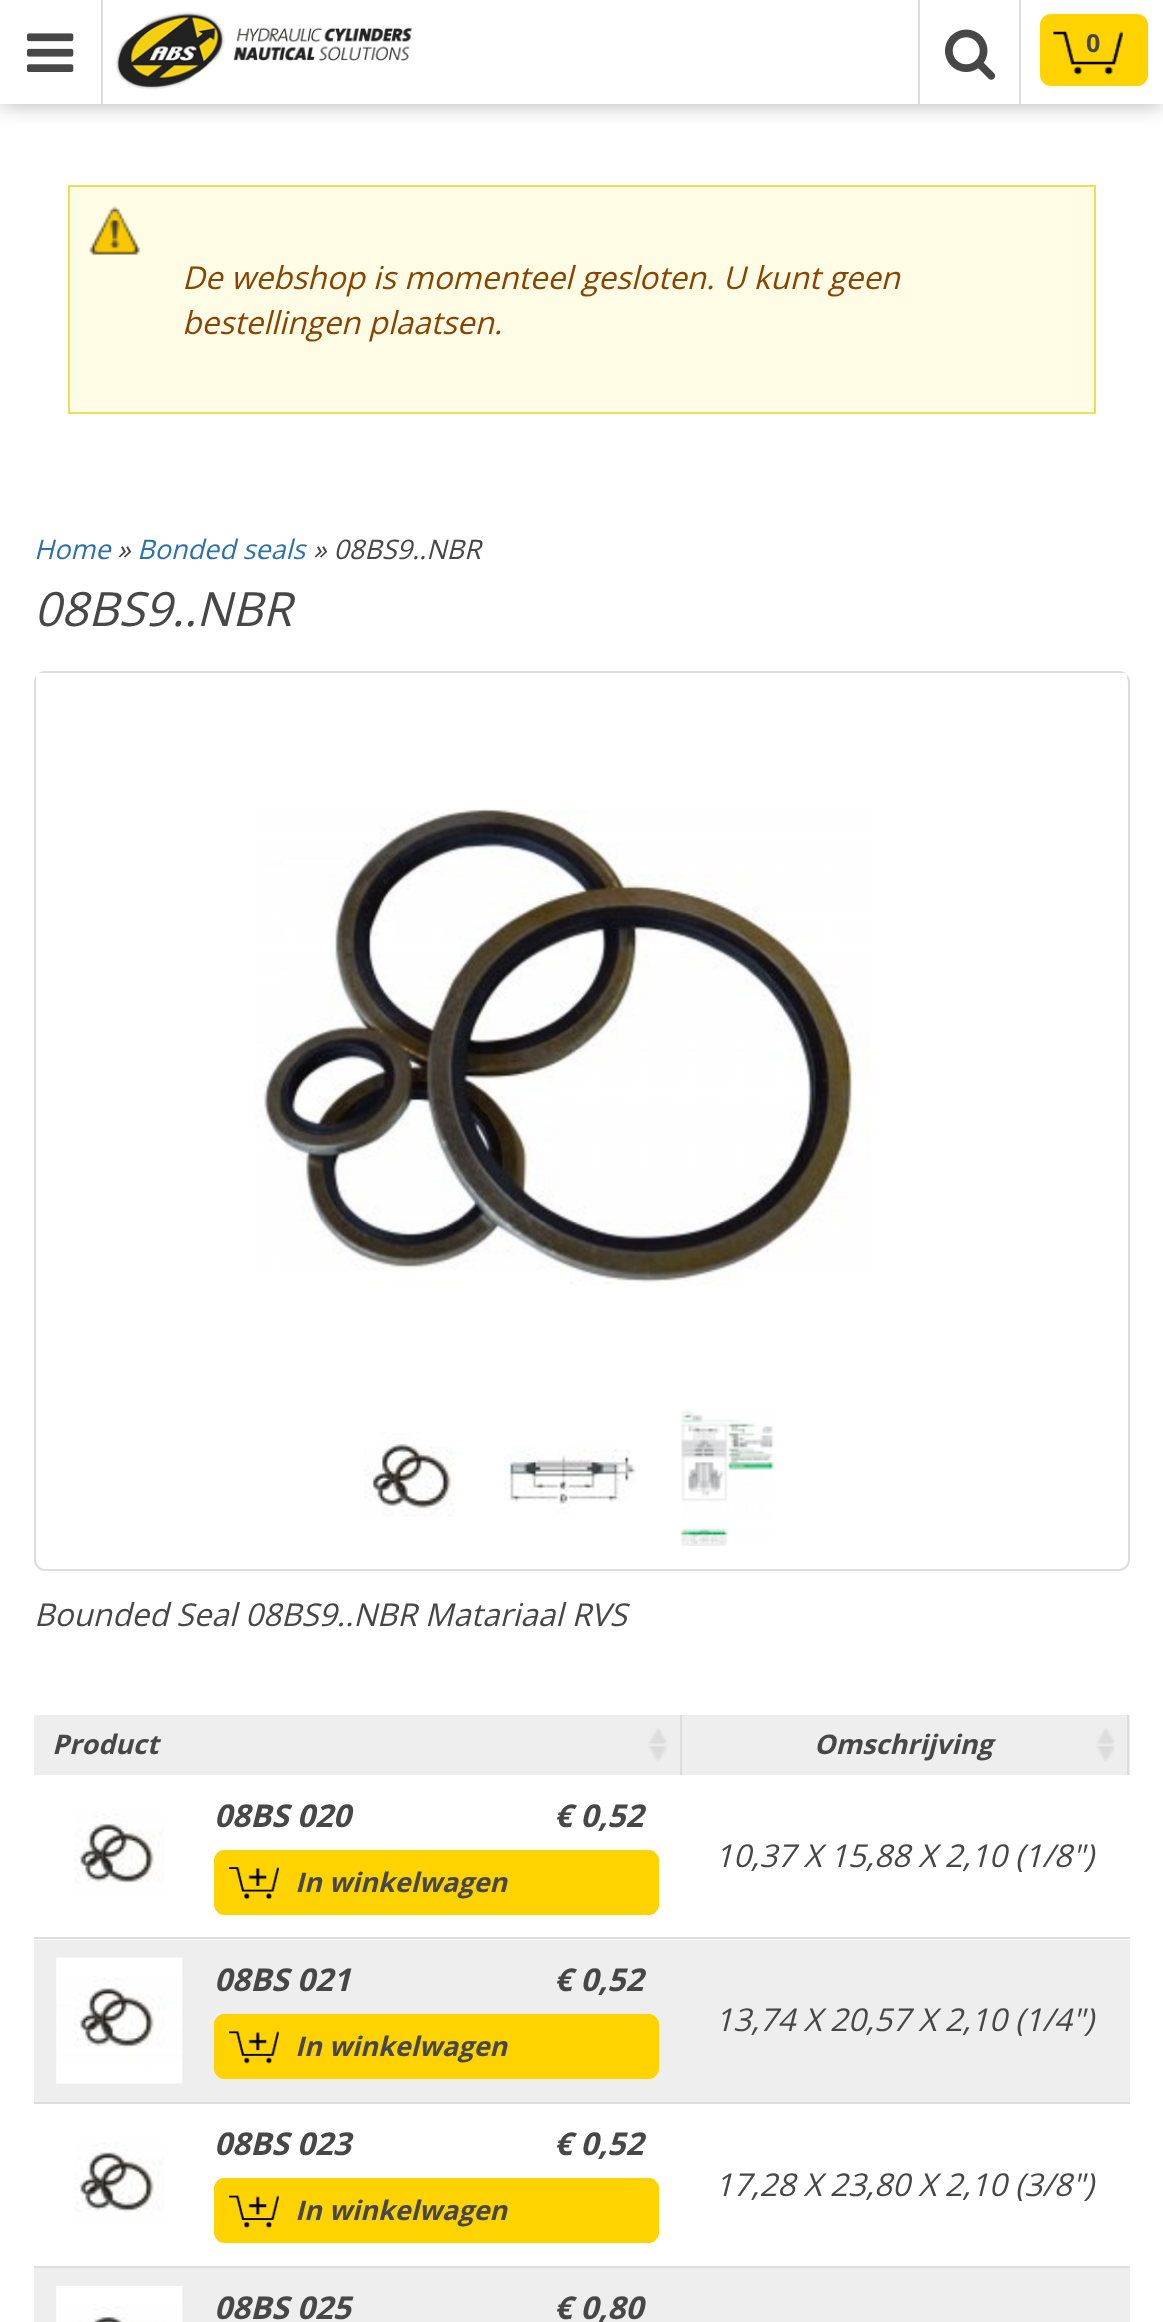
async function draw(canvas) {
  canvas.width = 1163
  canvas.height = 2322
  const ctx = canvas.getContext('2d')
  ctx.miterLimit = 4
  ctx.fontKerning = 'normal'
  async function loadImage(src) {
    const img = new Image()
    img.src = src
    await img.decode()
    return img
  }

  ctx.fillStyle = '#fff'
  ctx.fillRect(0, 0, 1163, 2322)
  ctx.fillStyle = '#0000004d'
  ctx.filter = 'blur(11px)'
  ctx.beginPath()
  ctx.rect(0, 0, 1163, 104)
  ctx.fill()
  ctx.filter = 'none'
  ctx.fillStyle = '#fff'
  ctx.fillRect(0, 0, 1163, 104)
  ctx.fillStyle = '#ddd'
  ctx.fillRect(101, 0, 2, 104)
  ctx.drawImage(await loadImage('image0.png'), 27, 33, 47, 39)
  ctx.drawImage(await loadImage('image1.png'), 115, 11, 297, 79)
  ctx.fillRect(1019, 0, 2, 104)
  ctx.fillRect(918, 0, 2, 104)
  ctx.drawImage(await loadImage('image2.png'), 945, 29, 51, 51)
  ctx.fillStyle = '#ffd300'
  ctx.beginPath()
  ctx.roundRect(1040, 14, 108, 72, 11)
  ctx.fill()
  ctx.drawImage(await loadImage('image3.png'), 1053, 31, 70, 44)
  ctx.font = 'bold 25px Open Sans'
  ctx.fillStyle = '#474747'
  ctx.fillText('0', 1086, 52)
  ctx.fillStyle = '#fffce5'
  ctx.fillRect(70, 187, 1024, 225)
  ctx.drawImage(await loadImage('image4.png'), 89, 206, 52, 50)
  ctx.strokeStyle = '#ed5'
  ctx.lineWidth = 2
  ctx.strokeRect(69, 186, 1026, 227)
  ctx.font = 'italic 31.5px Open Sans'
  ctx.fillStyle = '#840'
  ctx.fillText('De webshop is momenteel gesloten. U kunt geen', 182, 289)
  ctx.fillText('bestellingen plaatsen.', 182, 334)
  ctx.font = 'italic 27px Open Sans'
  ctx.fillStyle = '#2c71ac'
  ctx.fillText('Home', 34, 559)
  ctx.fillStyle = '#474747'
  ctx.fillText('»', 117, 559)
  ctx.fillStyle = '#2c71ac'
  ctx.fillText('Bonded seals', 137, 559)
  ctx.fillStyle = '#474747'
  ctx.fillText('» 08BS9..NBR', 313, 559)
  ctx.font = 'italic 47.25px Open Sans'
  ctx.fillText('08BS9..NBR', 34, 626)
  ctx.beginPath()
  ctx.roundRect(35, 672, 1094, 898, 10)
  ctx.strokeStyle = '#ddd'
  ctx.stroke()
  ctx.fillStyle = '#fff'
  ctx.fillRect(36, 673, 1091, 8)
  ctx.drawImage(await loadImage('image5.png'), 255, 808, 616, 478)
  ctx.drawImage(await loadImage('image6.png'), 364, 1432, 91, 85)
  ctx.drawImage(await loadImage('image7.png'), 504, 1447, 132, 67)
  ctx.drawImage(await loadImage('image8.png'), 681, 1410, 94, 136)
  ctx.font = 'italic 31.5px Open Sans'
  ctx.fillStyle = '#474747'
  ctx.fillText('Bounded Seal 08BS9..NBR Matariaal RVS', 34, 1626)
  ctx.fillStyle = '#eee'
  ctx.fillRect(34, 1715, 646, 60)
  ctx.drawImage(await loadImage('image9.png'), 648, 1728, 20, 34)
  ctx.fillStyle = '#ddd'
  ctx.fillRect(680, 1715, 2, 60)
  ctx.font = 'italic bold 27px Open Sans'
  ctx.fillStyle = '#474747'
  ctx.fillText('Product', 52, 1754)
  ctx.fillStyle = '#ddd'
  ctx.fillRect(680, 1937, 450, 2)
  ctx.fillStyle = '#fff'
  ctx.fillRect(680, 1937, 2, 2)
  ctx.fillStyle = '#ddd'
  ctx.fillRect(34, 1937, 648, 2)
  ctx.drawImage(await loadImage('image10.png'), 74, 1812, 90, 83)
  ctx.font = 'italic bold 31.5px Open Sans'
  ctx.fillStyle = '#474747'
  ctx.fillText('08BS 020', 214, 1827)
  ctx.fillText('€ 0,52', 554, 1827)
  ctx.fillStyle = '#ffd300'
  ctx.beginPath()
  ctx.roundRect(214, 1850, 445, 65, 11)
  ctx.fill()
  ctx.drawImage(await loadImage('image11.png'), 229, 1867, 50, 32)
  ctx.beginPath()
  ctx.roundRect(215, 1851, 443, 63, 10)
  ctx.strokeStyle = '#ffd300'
  ctx.stroke()
  ctx.font = 'italic bold 27px Open Sans'
  ctx.fillStyle = '#474747'
  ctx.fillText('In winkelwagen', 295, 1892)
  ctx.fillStyle = '#eee'
  ctx.fillRect(34, 1940, 1096, 162)
  ctx.drawImage(await loadImage('image12.png'), 56, 1957, 127, 127)
  ctx.font = 'italic bold 31.5px Open Sans'
  ctx.fillStyle = '#474747'
  ctx.fillText('08BS 021', 214, 1991)
  ctx.fillText('€ 0,52', 554, 1991)
  ctx.fillStyle = '#ffd300'
  ctx.beginPath()
  ctx.roundRect(214, 2014, 445, 65, 11)
  ctx.fill()
  ctx.drawImage(await loadImage('image13.png'), 229, 2031, 50, 33)
  ctx.beginPath()
  ctx.roundRect(215, 2015, 443, 63, 10)
  ctx.stroke()
  ctx.font = 'italic bold 27px Open Sans'
  ctx.fillStyle = '#474747'
  ctx.fillText('In winkelwagen', 295, 2056)
  ctx.drawImage(await loadImage('image14.png'), 74, 2142, 90, 82)
  ctx.font = 'italic bold 31.5px Open Sans'
  ctx.fillText('08BS 023', 214, 2155)
  ctx.fillText('€ 0,52', 554, 2155)
  ctx.fillStyle = '#ffd300'
  ctx.beginPath()
  ctx.roundRect(214, 2178, 445, 65, 11)
  ctx.fill()
  ctx.drawImage(await loadImage('image15.png'), 229, 2195, 50, 33)
  ctx.beginPath()
  ctx.roundRect(215, 2179, 443, 63, 10)
  ctx.stroke()
  ctx.font = 'italic bold 27px Open Sans'
  ctx.fillStyle = '#474747'
  ctx.fillText('In winkelwagen', 295, 2220)
  ctx.fillStyle = '#eee'
  ctx.fillRect(34, 2268, 1096, 54)
  ctx.drawImage(await loadImage('image16.png'), 56, 2286, 127, 36)
  ctx.font = 'italic bold 31.5px Open Sans'
  ctx.fillStyle = '#474747'
  ctx.fillText('08BS 025', 214, 2319)
  ctx.fillText('€ 0,80', 554, 2319)
  ctx.fillStyle = '#eee'
  ctx.fillRect(682, 1715, 448, 60)
  ctx.drawImage(await loadImage('image17.png'), 1096, 1728, 19, 34)
  ctx.fillStyle = '#ddd'
  ctx.fillRect(1127, 1715, 2, 60)
  ctx.font = 'italic bold 27px Open Sans'
  ctx.fillStyle = '#474747'
  ctx.fillText('Omschrijving', 814, 1754)
  ctx.font = 'italic 31.5px Open Sans'
  ctx.fillText('10,37 X 15,88 X 2,10 (1/8")', 715, 1867)
  ctx.fillStyle = '#ddd'
  ctx.fillRect(34, 2102, 1096, 2)
  ctx.fillStyle = '#474747'
  ctx.fillText('13,74 X 20,57 X 2,10 (1/4")', 715, 2031)
  ctx.fillStyle = '#ddd'
  ctx.fillRect(34, 2266, 1096, 2)
  ctx.fillStyle = '#474747'
  ctx.fillText('17,28 X 23,80 X 2,10 (3/8")', 715, 2196)
}

draw(document.querySelector('canvas'))
